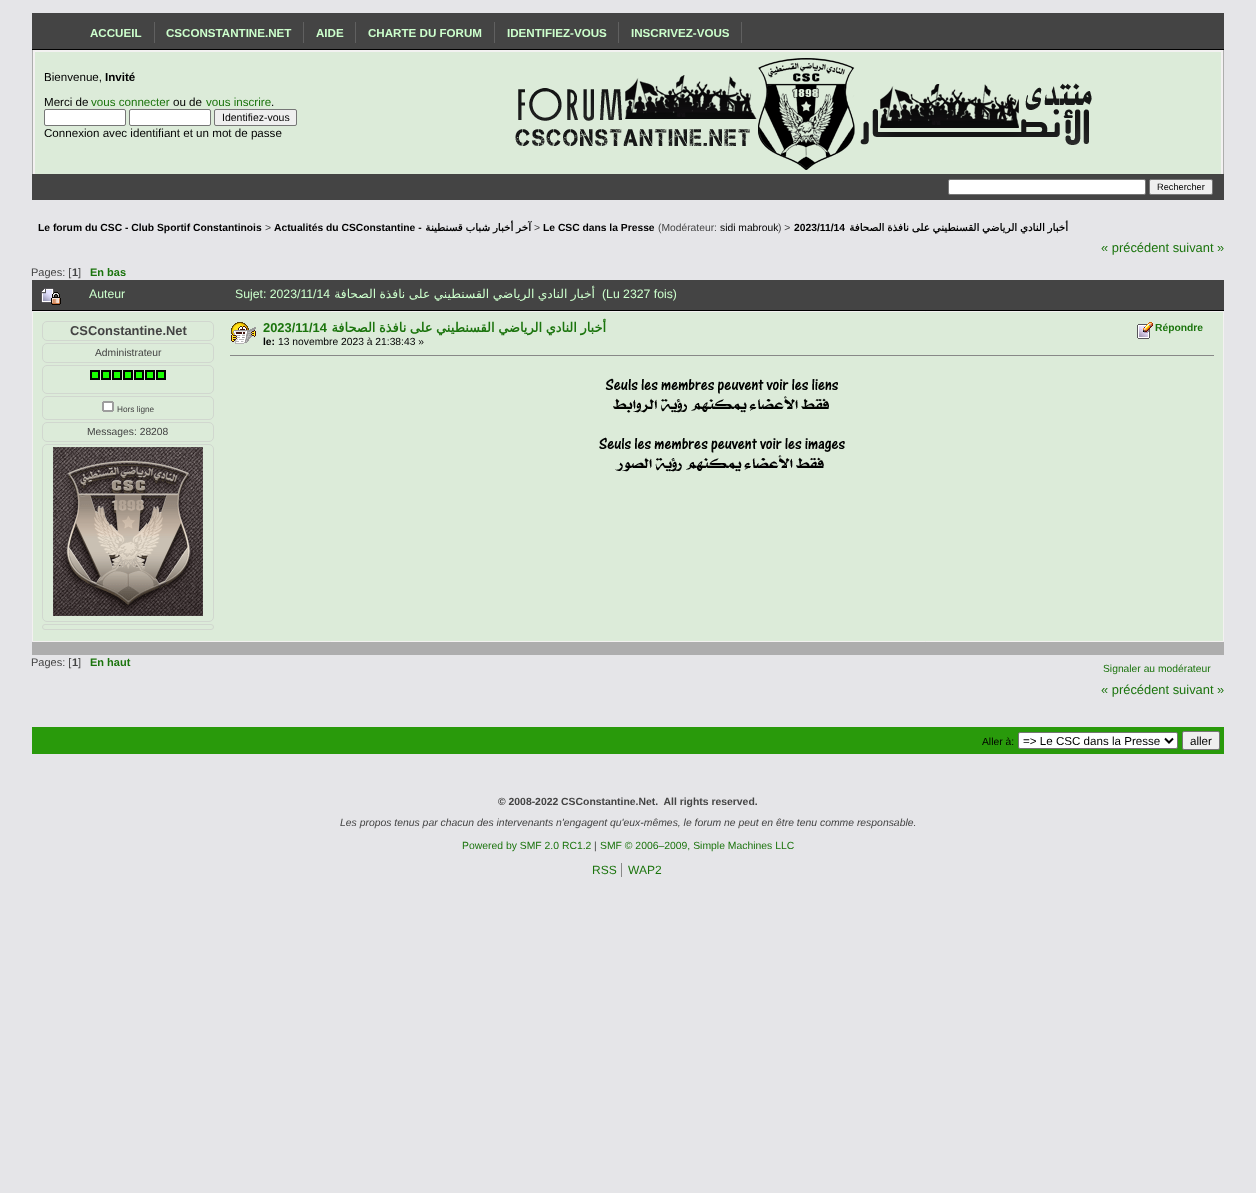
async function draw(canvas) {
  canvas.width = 1256
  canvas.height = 1193
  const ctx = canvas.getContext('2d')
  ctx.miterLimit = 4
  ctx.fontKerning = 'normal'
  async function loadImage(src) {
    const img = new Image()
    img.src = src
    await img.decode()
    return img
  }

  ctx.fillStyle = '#e5e5e8'
  ctx.fillRect(0, 0, 1256, 1193)
  ctx.fillStyle = '#444'
  ctx.fillRect(32, 13, 1192, 36)
  ctx.fillStyle = '#000'
  ctx.fillRect(32, 49, 1192, 1)
  ctx.fillStyle = '#606060'
  ctx.fillRect(154, 22, 1, 21)
  ctx.font = 'bold 11.6px Liberation Sans'
  ctx.fillStyle = '#cfc'
  ctx.fillText('ACCUEIL', 90, 37)
  ctx.fillStyle = '#606060'
  ctx.fillRect(303, 22, 1, 21)
  ctx.fillStyle = '#cfc'
  ctx.fillText('CSCONSTANTINE.NET', 166, 37)
  ctx.fillStyle = '#606060'
  ctx.fillRect(355, 22, 1, 21)
  ctx.fillStyle = '#cfc'
  ctx.fillText('AIDE', 316, 37)
  ctx.fillStyle = '#606060'
  ctx.fillRect(494, 22, 1, 21)
  ctx.fillStyle = '#cfc'
  ctx.fillText('CHARTE DU FORUM', 368, 37)
  ctx.fillStyle = '#606060'
  ctx.fillRect(618, 22, 1, 21)
  ctx.fillStyle = '#cfc'
  ctx.fillText('IDENTIFIEZ-VOUS', 507, 37)
  ctx.fillStyle = '#606060'
  ctx.fillRect(741, 22, 1, 21)
  ctx.fillStyle = '#cfc'
  ctx.fillText('INSCRIVEZ-VOUS', 631, 37)
  ctx.fillStyle = '#adadad'
  ctx.fillRect(32, 50, 1192, 124)
  ctx.strokeStyle = '#f3f1f1'
  ctx.strokeRect(33.5, 50.5, 1189, 123)
  ctx.fillStyle = '#dcebd9'
  ctx.fillRect(35, 52, 1186, 122)
  ctx.drawImage(await loadImage('image0.png'), 515, 58, 577, 112)
  ctx.strokeRect(34.5, 51.5, 1187, 135)
  ctx.font = '11.6px Liberation Sans'
  ctx.fillStyle = '#000'
  ctx.fillText('Bienvenue,', 44, 81)
  ctx.font = 'bold 11.6px Liberation Sans'
  ctx.fillText('Invité', 105, 81)
  ctx.font = '11.6px Liberation Sans'
  ctx.fillText('Merci de', 44, 106)
  ctx.fillStyle = '#1b740d'
  ctx.fillText('vous connecter', 91, 106)
  ctx.fillStyle = '#000'
  ctx.fillText('ou de', 173, 106)
  ctx.fillStyle = '#1b740d'
  ctx.fillText('vous inscrire', 206, 106)
  ctx.fillStyle = '#000'
  ctx.fillText('.', 271, 106)
  ctx.fillStyle = '#fff'
  ctx.beginPath()
  ctx.roundRect(44.5, 109.5, 81, 16, 1.5)
  ctx.fill()
  ctx.strokeStyle = '#767676'
  ctx.stroke()
  ctx.beginPath()
  ctx.roundRect(129.5, 109.5, 81, 16, 1.5)
  ctx.fill()
  ctx.stroke()
  ctx.fillStyle = '#efefef'
  ctx.beginPath()
  ctx.roundRect(214.5, 109.5, 82, 16, 1.5)
  ctx.fill()
  ctx.stroke()
  ctx.font = '10.5px Liberation Sans'
  ctx.fillStyle = '#000'
  ctx.fillText('Identifiez-vous', 222, 121)
  ctx.font = '11.6px Liberation Sans'
  ctx.fillText('Connexion avec identifiant et un mot de passe', 44, 137)
  ctx.fillStyle = '#444'
  ctx.fillRect(32, 174, 1192, 26)
  ctx.fillStyle = '#fff'
  ctx.beginPath()
  ctx.roundRect(948.5, 179.5, 197, 15, 1.5)
  ctx.fill()
  ctx.stroke()
  ctx.fillStyle = '#efefef'
  ctx.beginPath()
  ctx.roundRect(1149.5, 179.5, 63, 15, 1.5)
  ctx.fill()
  ctx.stroke()
  ctx.font = '9.25px Liberation Sans'
  ctx.fillStyle = '#000'
  ctx.fillText('Rechercher', 1157, 190)
  ctx.font = 'bold 10.3px Liberation Sans'
  ctx.fillText('Le forum du CSC - Club Sportif Constantinois', 38, 231)
  ctx.font = '10.3px Liberation Sans'
  ctx.fillStyle = '#444'
  ctx.fillText('>', 265, 231)
  ctx.font = 'bold 10.3px Liberation Sans'
  ctx.fillStyle = '#000'
  ctx.fillText('Actualités du CSConstantine -', 274, 231)
  ctx.wordSpacing = '-0.5px'
  ctx.direction = 'rtl'
  ctx.font = 'bold 10.3px DejaVu Sans'
  ctx.fillText('آخر أخبار شباب قسنطينة', 531, 231)
  ctx.wordSpacing = '0px'
  ctx.direction = 'ltr'
  ctx.font = '10.3px Liberation Sans'
  ctx.fillStyle = '#444'
  ctx.fillText('>', 534, 231)
  ctx.font = 'bold 10.3px Liberation Sans'
  ctx.fillStyle = '#000'
  ctx.fillText('Le CSC dans la Presse', 543, 231)
  ctx.font = '10.3px Liberation Sans'
  ctx.fillStyle = '#444'
  ctx.fillText('(Modérateur:', 658, 231)
  ctx.fillStyle = '#000'
  ctx.fillText('sidi mabrouk', 720, 231)
  ctx.fillStyle = '#444'
  ctx.fillText(') >', 778, 231)
  ctx.font = 'bold 10.3px Liberation Sans'
  ctx.fillStyle = '#000'
  ctx.fillText('2023/11/14', 794, 231)
  ctx.wordSpacing = '-0.5px'
  ctx.direction = 'rtl'
  ctx.font = 'bold 10.3px DejaVu Sans'
  ctx.fillText('أخبار النادي الرياضي القسنطيني على نافذة الصحافة', 1068, 231)
  ctx.wordSpacing = '0px'
  ctx.direction = 'ltr'
  ctx.font = '12.9px Liberation Sans'
  ctx.fillStyle = '#1b740d'
  ctx.fillText('« précédent suivant »', 1101, 252)
  ctx.font = '11px Liberation Sans'
  ctx.fillStyle = '#444'
  ctx.fillText('Pages: [', 31, 276)
  ctx.font = 'bold 11px Liberation Sans'
  ctx.fillText('1', 72, 276)
  ctx.font = '11px Liberation Sans'
  ctx.fillText(']', 78, 276)
  ctx.font = 'bold 11px Liberation Sans'
  ctx.fillStyle = '#1b740d'
  ctx.fillText('En bas', 90, 276)
  ctx.fillStyle = '#444'
  ctx.fillRect(32, 280, 1192, 30)
  ctx.fillStyle = '#000'
  ctx.fillRect(32, 310, 1192, 1)
  ctx.drawImage(await loadImage('image1.png'), 41, 288, 20, 17)
  ctx.font = '12.25px Liberation Sans'
  ctx.fillStyle = '#cfc'
  ctx.fillText('Auteur', 89, 298)
  ctx.fillText('Sujet: 2023/11/14', 235, 298)
  ctx.wordSpacing = '-0.5px'
  ctx.direction = 'rtl'
  ctx.font = '12.25px DejaVu Sans'
  ctx.fillText('أخبار النادي الرياضي القسنطيني على نافذة الصحافة', 595, 298)
  ctx.wordSpacing = '0px'
  ctx.direction = 'ltr'
  ctx.font = '12.25px Liberation Sans'
  ctx.fillText('(Lu 2327 fois)', 602, 298)
  ctx.fillStyle = '#adadad'
  ctx.fillRect(32, 642, 1192, 13)
  ctx.fillStyle = '#dcebd9'
  ctx.beginPath()
  ctx.rect(32.5, 311.5, 1191, 330)
  ctx.fill()
  ctx.strokeStyle = '#f3f1f1'
  ctx.stroke()
  ctx.beginPath()
  ctx.roundRect(42.5, 321.5, 171, 19, 4.5)
  ctx.strokeStyle = '#d1d7cf'
  ctx.stroke()
  ctx.font = 'bold 12.9px Liberation Sans'
  ctx.fillStyle = '#444'
  ctx.fillText('CSConstantine.Net', 70, 335)
  ctx.beginPath()
  ctx.roundRect(42.5, 343.5, 171, 19, 4.5)
  ctx.stroke()
  ctx.font = '10.3px Liberation Sans'
  ctx.fillText('Administrateur', 95, 356)
  ctx.beginPath()
  ctx.roundRect(42.5, 365.5, 171, 28, 4.5)
  ctx.stroke()
  ctx.drawImage(await loadImage('image2.png'), 90, 370, 76, 10)
  ctx.beginPath()
  ctx.roundRect(42.5, 396.5, 171, 23, 4.5)
  ctx.stroke()
  ctx.drawImage(await loadImage('image3.png'), 102, 401, 12, 11)
  ctx.font = '8.25px Liberation Sans'
  ctx.fillText('Hors ligne', 117, 412)
  ctx.beginPath()
  ctx.roundRect(42.5, 422.5, 171, 19, 4.5)
  ctx.stroke()
  ctx.font = '10.3px Liberation Sans'
  ctx.fillText('Messages: 28208', 87, 435)
  ctx.beginPath()
  ctx.roundRect(42.5, 444.5, 171, 177, 4.5)
  ctx.stroke()
  ctx.drawImage(await loadImage('image4.png'), 53, 447, 150, 169)
  ctx.beginPath()
  ctx.roundRect(42.5, 624.5, 171, 5, 2.5)
  ctx.stroke()
  ctx.drawImage(await loadImage('image5.png'), 231, 322, 25, 22)
  ctx.font = 'bold 12.9px Liberation Sans'
  ctx.fillStyle = '#1b740d'
  ctx.fillText('2023/11/14', 263, 332)
  ctx.wordSpacing = '-0.5px'
  ctx.direction = 'rtl'
  ctx.font = 'bold 12.9px DejaVu Sans'
  ctx.fillText('أخبار النادي الرياضي القسنطيني على نافذة الصحافة', 606, 332)
  ctx.wordSpacing = '0px'
  ctx.direction = 'ltr'
  ctx.font = 'bold 10.3px Liberation Sans'
  ctx.fillStyle = '#000'
  ctx.fillText('le:', 263, 345)
  ctx.font = '10.3px Liberation Sans'
  ctx.fillText('13 novembre 2023 à 21:38:43 »', 278, 345)
  ctx.drawImage(await loadImage('image6.png'), 1137, 322, 16, 17)
  ctx.font = 'bold 10.3px Liberation Sans'
  ctx.fillStyle = '#1b740d'
  ctx.fillText('Répondre', 1155, 331)
  ctx.fillStyle = '#888'
  ctx.fillRect(230, 355, 984, 1)
  ctx.drawImage(await loadImage('image7.png'), 605, 378, 233, 35)
  ctx.drawImage(await loadImage('image8.png'), 599, 437, 246, 35)
  ctx.font = '10.3px Liberation Sans'
  ctx.fillStyle = '#1b740d'
  ctx.fillText('Signaler au modérateur', 1103, 672)
  ctx.font = '11px Liberation Sans'
  ctx.fillStyle = '#444'
  ctx.fillText('Pages: [', 31, 666)
  ctx.font = 'bold 11px Liberation Sans'
  ctx.fillText('1', 72, 666)
  ctx.font = '11px Liberation Sans'
  ctx.fillText(']', 78, 666)
  ctx.font = 'bold 11px Liberation Sans'
  ctx.fillStyle = '#1b740d'
  ctx.fillText('En haut', 90, 666)
  ctx.font = '12.9px Liberation Sans'
  ctx.fillText('« précédent suivant »', 1101, 694)
  ctx.fillStyle = '#299a0b'
  ctx.fillRect(32, 727, 1192, 27)
  ctx.font = '10.3px Liberation Sans'
  ctx.fillStyle = '#000'
  ctx.fillText('Aller à:', 982, 745)
  ctx.fillStyle = '#fff'
  ctx.beginPath()
  ctx.roundRect(1018.5, 732.5, 159, 16, 1.5)
  ctx.fill()
  ctx.strokeStyle = '#767676'
  ctx.stroke()
  ctx.beginPath()
  ctx.moveTo(1165, 738.5)
  ctx.lineTo(1169, 742.5)
  ctx.lineTo(1173, 738.5)
  ctx.strokeStyle = '#000'
  ctx.lineWidth = 2
  ctx.stroke()
  ctx.font = '11.6px Liberation Sans'
  ctx.fillStyle = '#000'
  ctx.fillText('=> Le CSC dans la Presse', 1023, 745)
  ctx.fillStyle = '#efefef'
  ctx.beginPath()
  ctx.roundRect(1182.5, 731.5, 37, 18, 1.5)
  ctx.fill()
  ctx.strokeStyle = '#767676'
  ctx.lineWidth = 1
  ctx.stroke()
  ctx.fillStyle = '#000'
  ctx.fillText('aller', 1190, 745)
  ctx.font = 'bold 10.4px Liberation Sans'
  ctx.fillStyle = '#444'
  ctx.fillText('© 2008-2022 CSConstantine.Net.  All rights reserved.', 498, 805)
  ctx.font = 'italic 10.4px Liberation Sans'
  ctx.fillText('Les propos tenus par chacun des intervenants n\'engagent qu\'eux-mêmes, le forum ne peut en être tenu comme responsable.', 340, 826)
  ctx.font = '10.4px Liberation Sans'
  ctx.fillStyle = '#1b740d'
  ctx.fillText('Powered by SMF 2.0 RC1.2', 462, 849)
  ctx.fillStyle = '#444'
  ctx.fillText('|', 594, 849)
  ctx.fillStyle = '#1b740d'
  ctx.fillText('SMF © 2006–2009, Simple Machines LLC', 600, 849)
  ctx.font = '12px Liberation Sans'
  ctx.fillText('RSS', 592, 874)
  ctx.fillStyle = '#888'
  ctx.fillRect(621, 863, 1, 14)
  ctx.fillStyle = '#1b740d'
  ctx.fillText('WAP2', 628, 874)
}

draw(document.querySelector('canvas'))
